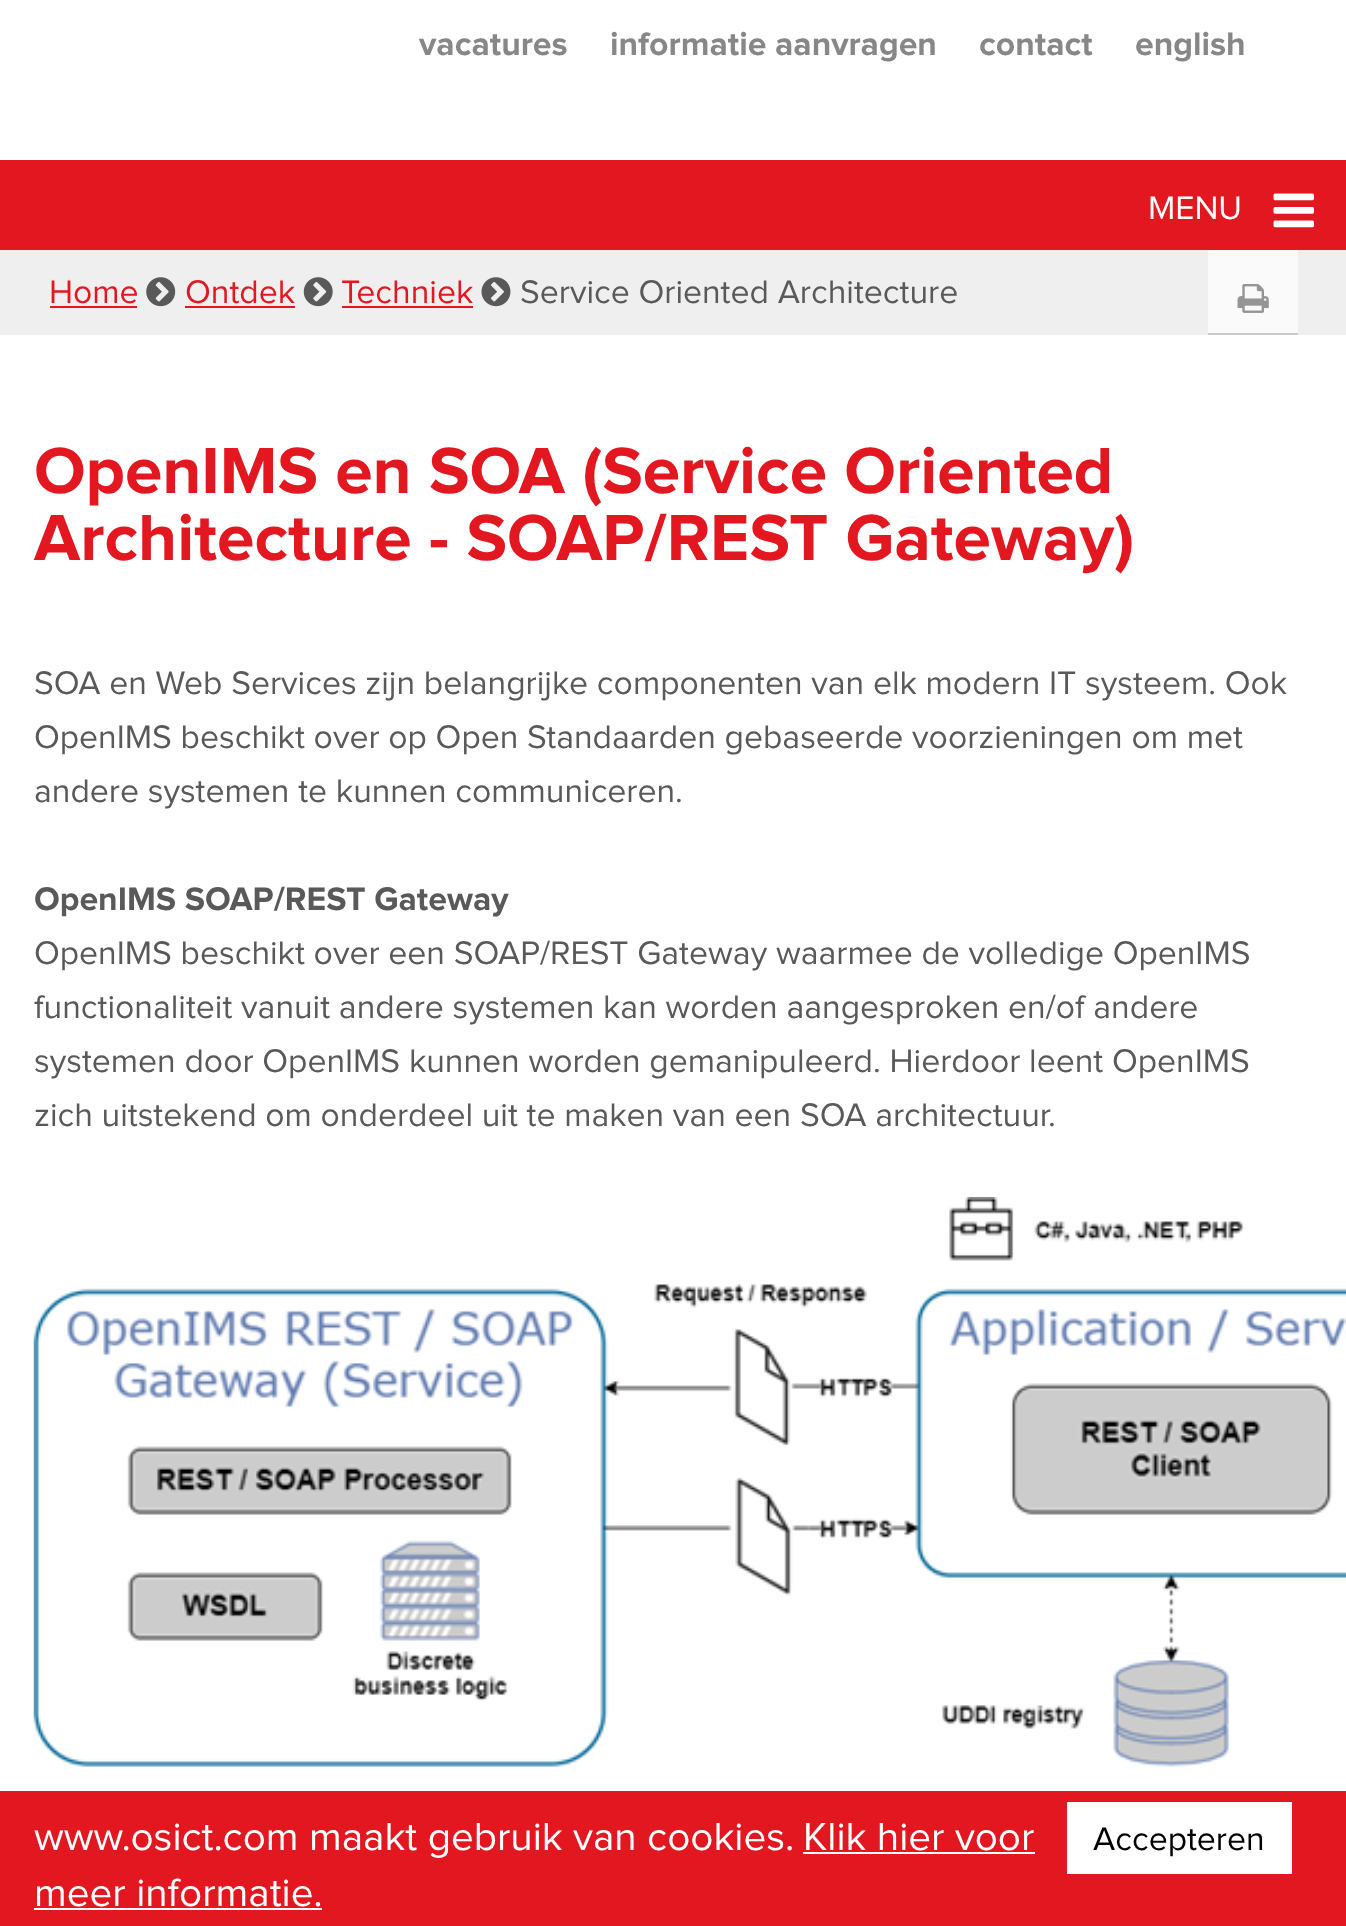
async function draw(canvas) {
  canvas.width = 1346
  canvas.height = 1926
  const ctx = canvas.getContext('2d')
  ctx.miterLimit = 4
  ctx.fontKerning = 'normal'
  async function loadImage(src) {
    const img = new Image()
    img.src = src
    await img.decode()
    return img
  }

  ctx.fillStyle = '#fff'
  ctx.fillRect(0, 0, 1346, 1926)
  ctx.font = 'bold 33.75px Proxima Nova'
  ctx.fillStyle = '#878787'
  ctx.fillText('vacatures', 419, 55)
  ctx.fillText('informatie aanvragen', 610, 55)
  ctx.fillText('contact', 979, 55)
  ctx.fillText('english', 1135, 55)
  ctx.fillStyle = '#e31720'
  ctx.fillRect(0, 160, 1346, 90)
  ctx.font = '33.75px Proxima Nova'
  ctx.fillStyle = '#fff'
  ctx.fillText('MENU', 1148, 219)
  ctx.drawImage(await loadImage('image0.png'), 1273, 193, 41, 35)
  ctx.fillStyle = '#efefef'
  ctx.fillRect(0, 250, 1346, 85)
  ctx.fillStyle = '#fafafa'
  ctx.fillRect(1208, 250, 90, 83)
  ctx.fillStyle = '#e31720'
  ctx.fillText('Home', 49, 303)
  ctx.fillRect(50, 306, 87, 2)
  ctx.drawImage(await loadImage('image1.png'), 146, 277, 30, 30)
  ctx.fillText('Ontdek', 185, 303)
  ctx.fillRect(185, 306, 110, 2)
  ctx.drawImage(await loadImage('image2.png'), 303, 277, 30, 30)
  ctx.fillText('Techniek', 341, 303)
  ctx.fillRect(342, 306, 131, 2)
  ctx.drawImage(await loadImage('image3.png'), 481, 277, 30, 30)
  ctx.fillStyle = '#595959'
  ctx.fillText('Service Oriented Architecture', 520, 303)
  ctx.fillStyle = '#c8c8c8'
  ctx.fillRect(1208, 333, 90, 2)
  ctx.drawImage(await loadImage('image4.png'), 1237, 284, 32, 29)
  ctx.font = 'bold 67.5px Proxima Nova'
  ctx.fillStyle = '#e31720'
  ctx.fillText('OpenIMS en SOA (Service Oriented', 34, 493)
  ctx.fillText('Architecture - SOAP/REST Gateway)', 34, 560)
  ctx.font = '33.75px Proxima Nova'
  ctx.fillStyle = '#595959'
  ctx.fillText('SOA en Web Services zijn belangrijke componenten van elk modern IT systeem. Ook', 34, 694)
  ctx.fillText('OpenIMS beschikt over op Open Standaarden gebaseerde voorzieningen om met', 34, 748)
  ctx.fillText('andere systemen te kunnen communiceren.', 34, 802)
  ctx.font = 'bold 33.75px Proxima Nova'
  ctx.fillText('OpenIMS SOAP/REST Gateway', 34, 910)
  ctx.font = '33.75px Proxima Nova'
  ctx.fillText('OpenIMS beschikt over een SOAP/REST Gateway waarmee de volledige OpenIMS', 34, 964)
  ctx.fillText('functionaliteit vanuit andere systemen kan worden aangesproken en/of andere', 34, 1018)
  ctx.fillText('systemen door OpenIMS kunnen worden gemanipuleerd. Hierdoor leent OpenIMS', 34, 1072)
  ctx.fillText('zich uitstekend om onderdeel uit te maken van een SOA architectuur.', 34, 1126)
  ctx.drawImage(await loadImage('image5.png'), 33, 1197, 1313, 570)
  ctx.fillStyle = '#e31720'
  ctx.fillRect(0, 1791, 1346, 135)
  ctx.font = '40.5px Proxima Nova'
  ctx.fillStyle = '#fff'
  ctx.fillText('www.osict.com maakt gebruik van cookies.', 34, 1850)
  ctx.fillText('Klik hier voor', 803, 1850)
  ctx.fillRect(803, 1852, 232, 2)
  ctx.fillText('meer informatie.', 34, 1906)
  ctx.fillRect(34, 1908, 288, 2)
  ctx.fillRect(1067, 1802, 225, 72)
  ctx.font = '33.75px Proxima Nova'
  ctx.fillStyle = '#000'
  ctx.fillText('Accepteren', 1093, 1850)
}

draw(document.querySelector('canvas'))
